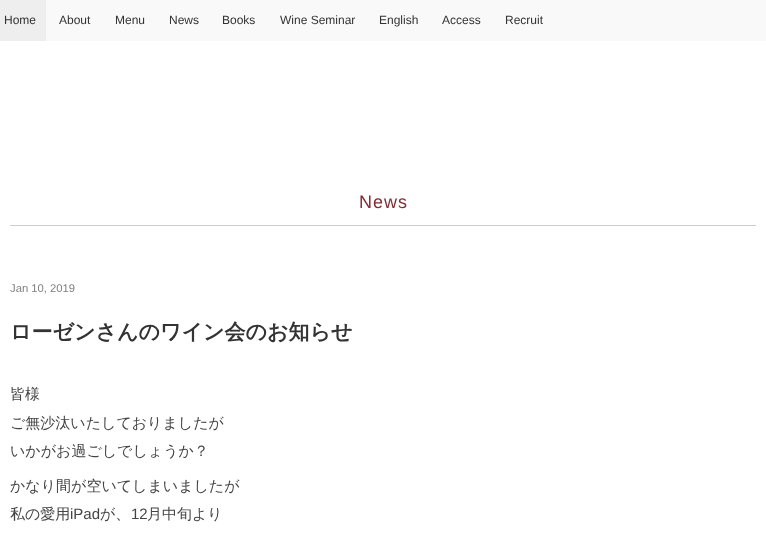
async function draw(canvas) {
  canvas.width = 766
  canvas.height = 541
  const ctx = canvas.getContext('2d')
  ctx.miterLimit = 4
  ctx.fontKerning = 'normal'

  ctx.fillStyle = '#fff'
  ctx.fillRect(0, 0, 766, 541)
  ctx.fillStyle = '#f9f9f9'
  ctx.fillRect(46, 0, 720, 41)
  ctx.fillStyle = '#eee'
  ctx.fillRect(0, 0, 46, 41)
  ctx.font = '12px Liberation Sans'
  ctx.fillStyle = '#333'
  ctx.fillText('Home', 4, 24)
  ctx.fillText('About', 59, 24)
  ctx.fillText('Menu', 115, 24)
  ctx.fillText('News', 169, 24)
  ctx.fillText('Books', 222, 24)
  ctx.fillText('Wine Seminar', 280, 24)
  ctx.fillText('English', 379, 24)
  ctx.fillText('Access', 442, 24)
  ctx.fillText('Recruit', 505, 24)
  ctx.fillStyle = '#ccc'
  ctx.fillRect(10, 225, 746, 1)
  ctx.letterSpacing = '1px'
  ctx.font = '18px Liberation Sans'
  ctx.fillStyle = '#802d34'
  ctx.fillText('News', 359, 208)
  ctx.letterSpacing = '0px'
  ctx.font = '11.25px Liberation Sans'
  ctx.fillStyle = '#808080'
  ctx.fillText('Jan 10, 2019', 10, 292)
  ctx.font = 'bold 21px WenQuanYi Zen Hei'
  ctx.fillStyle = '#333'
  ctx.fillText('ローゼンさんのワイン会のお知らせ', 10, 339)
  ctx.font = '500 15px WenQuanYi Zen Hei'
  ctx.fillStyle = '#444'
  ctx.fillText('皆様', 10, 399)
  ctx.fillText('ご無沙汰いたしておりましたが', 10, 428)
  ctx.fillText('いかがお過ごしでしょうか？', 10, 456)
  ctx.fillText('かなり間が空いてしまいましたが', 10, 491)
  ctx.fillText('私の愛用', 10, 519)
  ctx.font = '15px Liberation Sans'
  ctx.fillText('iPad', 70, 519)
  ctx.font = '500 15px WenQuanYi Zen Hei'
  ctx.fillText('が、', 100, 519)
  ctx.font = '15px Liberation Sans'
  ctx.fillText('12', 131, 519)
  ctx.font = '500 15px WenQuanYi Zen Hei'
  ctx.fillText('月中旬より', 147, 519)
}

draw(document.querySelector('canvas'))
